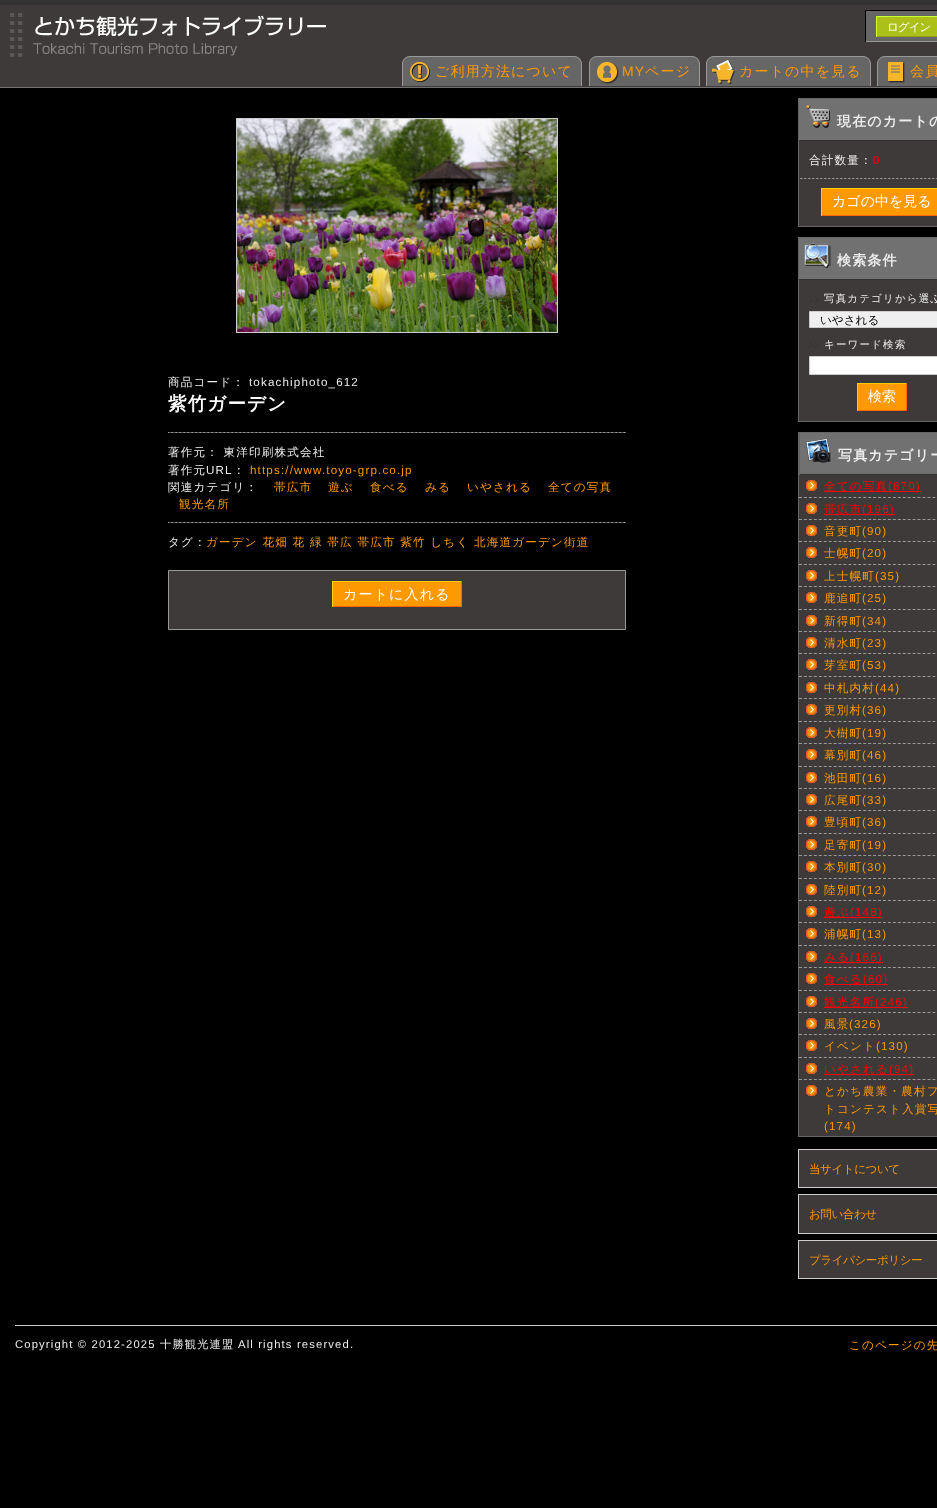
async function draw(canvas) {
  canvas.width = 937
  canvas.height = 1508
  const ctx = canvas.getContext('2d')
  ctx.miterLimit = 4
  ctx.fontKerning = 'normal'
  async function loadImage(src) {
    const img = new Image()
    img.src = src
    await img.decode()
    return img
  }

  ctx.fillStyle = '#000'
  ctx.fillRect(0, 0, 937, 1508)
  ctx.fillStyle = '#3e3a39'
  ctx.fillRect(0, 5, 937, 82)
  ctx.fillStyle = '#333'
  ctx.fillRect(0, 0, 937, 5)
  ctx.fillStyle = '#717071'
  ctx.fillRect(0, 87, 937, 1)
  ctx.drawImage(await loadImage('image0.png'), 10, 13, 316, 44)
  ctx.fillStyle = '#666'
  ctx.fillRect(866, 11, 71, 30)
  ctx.fillStyle = '#000'
  ctx.fillRect(865, 10, 72, 1)
  ctx.fillStyle = '#999'
  ctx.fillRect(865, 41, 72, 1)
  ctx.fillStyle = '#000'
  ctx.fillRect(865, 10, 1, 32)
  ctx.fillStyle = '#abc119'
  ctx.fillRect(877, 17, 60, 19)
  ctx.letterSpacing = '-1px'
  ctx.font = '500 11.6px WenQuanYi Zen Hei'
  ctx.fillStyle = '#fff'
  ctx.fillText('ログイン', 887, 31)
  ctx.fillStyle = '#cf3'
  ctx.fillRect(876, 16, 61, 1)
  ctx.fillStyle = '#990'
  ctx.fillRect(876, 36, 61, 1)
  ctx.fillStyle = '#cf3'
  ctx.fillRect(876, 16, 1, 21)
  ctx.fillStyle = '#666'
  ctx.beginPath()
  ctx.roundRect(402, 56, 180, 30, [8, 8, 0, 0])
  ctx.fill()
  ctx.drawImage(await loadImage('image1.png'), 410, 62, 20, 20)
  ctx.fillStyle = '#999'
  ctx.beginPath()
  ctx.moveTo(410, 56)
  ctx.lineTo(574, 56)
  ctx.bezierCurveTo(578, 56, 582, 60, 582, 64)
  ctx.lineTo(582, 86)
  ctx.lineTo(402, 86)
  ctx.lineTo(402, 64)
  ctx.bezierCurveTo(402, 60, 406, 56, 410, 56)
  ctx.closePath()
  ctx.moveTo(410, 57)
  ctx.lineTo(574, 57)
  ctx.bezierCurveTo(578, 57, 581, 60, 581, 64)
  ctx.lineTo(581, 86)
  ctx.lineTo(403, 86)
  ctx.lineTo(403, 64)
  ctx.bezierCurveTo(403, 60, 406, 57, 410, 57)
  ctx.closePath()
  ctx.fill('evenodd')
  ctx.letterSpacing = '1.15px'
  ctx.font = '500 14px WenQuanYi Zen Hei'
  ctx.fillStyle = '#f90'
  ctx.fillText('ご利用方法について', 435, 76)
  ctx.fillStyle = '#666'
  ctx.beginPath()
  ctx.roundRect(589, 56, 111, 30, [8, 8, 0, 0])
  ctx.fill()
  ctx.drawImage(await loadImage('image2.png'), 597, 62, 22, 22)
  ctx.fillStyle = '#999'
  ctx.beginPath()
  ctx.moveTo(597, 56)
  ctx.lineTo(692, 56)
  ctx.bezierCurveTo(696, 56, 700, 60, 700, 64)
  ctx.lineTo(700, 86)
  ctx.lineTo(589, 86)
  ctx.lineTo(589, 64)
  ctx.bezierCurveTo(589, 60, 593, 56, 597, 56)
  ctx.closePath()
  ctx.moveTo(597, 57)
  ctx.lineTo(692, 57)
  ctx.bezierCurveTo(696, 57, 699, 60, 699, 64)
  ctx.lineTo(699, 86)
  ctx.lineTo(590, 86)
  ctx.lineTo(590, 64)
  ctx.bezierCurveTo(590, 60, 593, 57, 597, 57)
  ctx.closePath()
  ctx.fill('evenodd')
  ctx.font = '14px Liberation Sans'
  ctx.fillStyle = '#f90'
  ctx.fillText('MY', 622, 76)
  ctx.font = '500 14px WenQuanYi Zen Hei'
  ctx.fillText('ページ', 645, 76)
  ctx.fillStyle = '#666'
  ctx.beginPath()
  ctx.roundRect(706, 56, 165, 30, [8, 8, 0, 0])
  ctx.fill()
  ctx.drawImage(await loadImage('image3.png'), 712, 60, 23, 24)
  ctx.fillStyle = '#999'
  ctx.beginPath()
  ctx.moveTo(714, 56)
  ctx.lineTo(863, 56)
  ctx.bezierCurveTo(867, 56, 871, 60, 871, 64)
  ctx.lineTo(871, 86)
  ctx.lineTo(706, 86)
  ctx.lineTo(706, 64)
  ctx.bezierCurveTo(706, 60, 710, 56, 714, 56)
  ctx.closePath()
  ctx.moveTo(714, 57)
  ctx.lineTo(863, 57)
  ctx.bezierCurveTo(867, 57, 870, 60, 870, 64)
  ctx.lineTo(870, 86)
  ctx.lineTo(707, 86)
  ctx.lineTo(707, 64)
  ctx.bezierCurveTo(707, 60, 710, 57, 714, 57)
  ctx.closePath()
  ctx.fill('evenodd')
  ctx.fillStyle = '#f90'
  ctx.fillText('カートの中を見る', 739, 76)
  ctx.fillStyle = '#666'
  ctx.beginPath()
  ctx.moveTo(885, 56)
  ctx.lineTo(937, 56)
  ctx.bezierCurveTo(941.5, 56, 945, 59.5, 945, 64)
  ctx.lineTo(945, 86)
  ctx.lineTo(877, 86)
  ctx.lineTo(877, 64)
  ctx.bezierCurveTo(877, 59.5, 880.5, 56, 885, 56)
  ctx.closePath()
  ctx.fill()
  ctx.drawImage(await loadImage('image4.png'), 888, 62, 17, 21)
  ctx.fillStyle = '#999'
  ctx.beginPath()
  ctx.moveTo(885, 56)
  ctx.lineTo(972, 56)
  ctx.bezierCurveTo(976, 56, 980, 60, 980, 64)
  ctx.lineTo(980, 86)
  ctx.lineTo(877, 86)
  ctx.lineTo(877, 64)
  ctx.bezierCurveTo(877, 60, 881, 56, 885, 56)
  ctx.closePath()
  ctx.moveTo(885, 57)
  ctx.lineTo(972, 57)
  ctx.bezierCurveTo(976, 57, 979, 60, 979, 64)
  ctx.lineTo(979, 86)
  ctx.lineTo(878, 86)
  ctx.lineTo(878, 64)
  ctx.bezierCurveTo(878, 60, 881, 57, 885, 57)
  ctx.closePath()
  ctx.fill('evenodd')
  ctx.fillStyle = '#f90'
  ctx.fillText('会員', 910, 76)
  ctx.strokeStyle = '#ccc'
  ctx.strokeRect(236.5, 118.5, 321, 214)
  ctx.drawImage(await loadImage('image5.png'), 237, 119, 320, 213)
  ctx.font = '500 11.6px WenQuanYi Zen Hei'
  ctx.fillStyle = '#ededed'
  ctx.fillText('商品コード：', 168, 386)
  ctx.font = '11.6px Liberation Sans'
  ctx.fillText('tokachiphoto_612', 249, 386)
  ctx.drawImage(await loadImage('image6.png'), 168, 432, 458, 1)
  ctx.font = 'bold 18.5px WenQuanYi Zen Hei'
  ctx.fillStyle = '#fff'
  ctx.fillText('紫竹ガーデン', 168, 410)
  ctx.font = '500 11.6px WenQuanYi Zen Hei'
  ctx.fillStyle = '#ededed'
  ctx.fillText('著作元： 東洋印刷株式会社', 168, 456)
  ctx.fillText('著作元', 168, 474)
  ctx.font = '11.6px Liberation Sans'
  ctx.fillText('URL', 206, 474)
  ctx.font = '500 11.6px WenQuanYi Zen Hei'
  ctx.fillText('：', 233, 474)
  ctx.font = '11.6px Liberation Sans'
  ctx.fillStyle = '#f90'
  ctx.fillText('https://www.toyo-grp.co.jp', 250, 474)
  ctx.drawImage(await loadImage('image6.png'), 168, 522, 458, 1)
  ctx.font = '500 11.6px WenQuanYi Zen Hei'
  ctx.fillStyle = '#ededed'
  ctx.fillText('関連カテゴリ：', 168, 491)
  ctx.fillStyle = '#f90'
  ctx.fillText('帯広市', 274, 491)
  ctx.fillText('遊ぶ', 328, 491)
  ctx.fillText('食べる', 370, 491)
  ctx.fillText('みる', 425, 491)
  ctx.fillText('いやされる', 467, 491)
  ctx.fillText('全ての写真', 548, 491)
  ctx.fillText('観光名所', 179, 508)
  ctx.fillStyle = '#ededed'
  ctx.fillText('タグ：', 168, 546)
  ctx.fillStyle = '#f90'
  ctx.fillText('ガーデン 花畑 花 緑 帯広 帯広市 紫竹 しちく 北海道ガーデン街道', 206, 546)
  ctx.fillStyle = '#3e3a39'
  ctx.beginPath()
  ctx.rect(168.5, 570.5, 457, 59)
  ctx.fill()
  ctx.strokeStyle = '#999'
  ctx.stroke()
  ctx.fillStyle = '#f90'
  ctx.fillRect(333, 582, 128, 24)
  ctx.font = '500 14px WenQuanYi Zen Hei'
  ctx.fillStyle = '#fff'
  ctx.fillText('カートに入れる', 343, 599)
  ctx.fillStyle = '#fc0'
  ctx.fillRect(332, 581, 130, 1)
  ctx.fillStyle = '#f60'
  ctx.fillRect(461, 581, 1, 26)
  ctx.fillRect(332, 606, 130, 1)
  ctx.fillStyle = '#fc0'
  ctx.fillRect(332, 581, 1, 26)
  ctx.fillStyle = '#717171'
  ctx.fillRect(799, 99, 138, 41)
  ctx.fillStyle = '#666'
  ctx.fillRect(798, 98, 139, 1)
  ctx.fillStyle = '#333'
  ctx.fillRect(798, 140, 139, 1)
  ctx.fillStyle = '#666'
  ctx.fillRect(798, 98, 1, 43)
  ctx.drawImage(await loadImage('image7.png'), 806, 105, 24, 23)
  ctx.font = 'bold 14px WenQuanYi Zen Hei'
  ctx.fillStyle = '#ededed'
  ctx.fillText('現在のカートの', 837, 126)
  ctx.fillStyle = '#3e3a39'
  ctx.fillRect(799, 141, 138, 85)
  ctx.fillStyle = '#666'
  ctx.fillRect(798, 226, 139, 1)
  ctx.fillRect(798, 141, 1, 86)
  ctx.font = '500 11.6px WenQuanYi Zen Hei'
  ctx.fillStyle = '#ededed'
  ctx.fillText('合計数量：', 809, 164)
  ctx.font = '11.6px Liberation Sans'
  ctx.fillStyle = '#f00'
  ctx.fillText('0', 873, 164)
  ctx.drawImage(await loadImage('image8.png'), 799, 178, 138, 1)
  ctx.fillStyle = '#f90'
  ctx.fillRect(822, 189, 115, 26)
  ctx.fillStyle = '#fc0'
  ctx.fillRect(821, 188, 116, 1)
  ctx.fillStyle = '#f60'
  ctx.fillRect(821, 215, 116, 1)
  ctx.fillStyle = '#fc0'
  ctx.fillRect(821, 188, 1, 28)
  ctx.letterSpacing = '0px'
  ctx.font = '500 14px WenQuanYi Zen Hei'
  ctx.fillStyle = '#fff'
  ctx.fillText('カゴの中を見る', 832, 206)
  ctx.fillStyle = '#717171'
  ctx.fillRect(799, 238, 138, 41)
  ctx.fillStyle = '#666'
  ctx.fillRect(798, 237, 139, 1)
  ctx.fillStyle = '#333'
  ctx.fillRect(798, 279, 139, 1)
  ctx.fillStyle = '#666'
  ctx.fillRect(798, 237, 1, 43)
  ctx.drawImage(await loadImage('image9.png'), 804, 243, 27, 25)
  ctx.letterSpacing = '1.15px'
  ctx.font = 'bold 14px WenQuanYi Zen Hei'
  ctx.fillStyle = '#ededed'
  ctx.fillText('検索条件', 837, 265)
  ctx.fillStyle = '#3e3a39'
  ctx.fillRect(799, 280, 138, 141)
  ctx.fillStyle = '#666'
  ctx.fillRect(798, 421, 139, 1)
  ctx.fillRect(798, 280, 1, 142)
  ctx.drawImage(await loadImage('image10.png'), 809, 296, 9, 7)
  ctx.font = '500 10.5px WenQuanYi Zen Hei'
  ctx.fillStyle = '#ededed'
  ctx.fillText('写真カテゴリから選ぶ', 824, 302)
  ctx.fillStyle = '#efefef'
  ctx.beginPath()
  ctx.rect(809.5, 311.5, 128, 16)
  ctx.fill()
  ctx.strokeStyle = '#ccc'
  ctx.stroke()
  ctx.letterSpacing = '0px'
  ctx.font = '500 11.6px WenQuanYi Zen Hei'
  ctx.fillStyle = '#000'
  ctx.fillText('いやされる', 820, 324)
  ctx.drawImage(await loadImage('image10.png'), 809, 341, 9, 7)
  ctx.letterSpacing = '1.15px'
  ctx.font = '500 10.5px WenQuanYi Zen Hei'
  ctx.fillStyle = '#ededed'
  ctx.fillText('キーワード検索', 824, 348)
  ctx.fillStyle = '#fff'
  ctx.beginPath()
  ctx.rect(809.5, 356.5, 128, 18)
  ctx.fill()
  ctx.stroke()
  ctx.fillStyle = '#f90'
  ctx.fillRect(858, 384, 48, 26)
  ctx.fillStyle = '#fc0'
  ctx.fillRect(857, 383, 50, 1)
  ctx.fillStyle = '#f60'
  ctx.fillRect(906, 383, 1, 28)
  ctx.fillRect(857, 410, 50, 1)
  ctx.fillStyle = '#fc0'
  ctx.fillRect(857, 383, 1, 28)
  ctx.letterSpacing = '0px'
  ctx.font = '500 14px WenQuanYi Zen Hei'
  ctx.fillStyle = '#fff'
  ctx.fillText('検索', 868, 401)
  ctx.fillStyle = '#3e3a39'
  ctx.fillRect(799, 475, 138, 661)
  ctx.fillStyle = '#666'
  ctx.fillRect(798, 1136, 139, 1)
  ctx.fillRect(798, 432, 1, 705)
  ctx.fillStyle = '#717171'
  ctx.fillRect(800, 433, 137, 41)
  ctx.fillStyle = '#666'
  ctx.fillRect(799, 432, 138, 1)
  ctx.fillStyle = '#333'
  ctx.fillRect(799, 474, 138, 1)
  ctx.fillStyle = '#666'
  ctx.fillRect(799, 432, 1, 43)
  ctx.drawImage(await loadImage('image11.png'), 806, 438, 25, 25)
  ctx.letterSpacing = '1.15px'
  ctx.font = 'bold 14px WenQuanYi Zen Hei'
  ctx.fillStyle = '#ededed'
  ctx.fillText('写真カテゴリー', 838, 460)
  ctx.beginPath()
  ctx.moveTo(799, 497.5)
  ctx.lineTo(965, 497.5)
  ctx.strokeStyle = '#999'
  ctx.setLineDash([3, 1.94])
  ctx.stroke()
  ctx.drawImage(await loadImage('image12.png'), 806, 480, 11, 11)
  ctx.fillStyle = '#f00'
  ctx.fillRect(824, 491, 97, 1)
  ctx.font = '500 11.6px WenQuanYi Zen Hei'
  ctx.fillText('全ての写真', 824, 490)
  ctx.font = '11.6px Liberation Sans'
  ctx.fillText('(870)', 888, 490)
  ctx.beginPath()
  ctx.moveTo(799, 519.5)
  ctx.lineTo(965, 519.5)
  ctx.stroke()
  ctx.drawImage(await loadImage('image12.png'), 806, 503, 11, 11)
  ctx.fillRect(824, 514, 71, 1)
  ctx.font = '500 11.6px WenQuanYi Zen Hei'
  ctx.fillText('帯広市', 824, 513)
  ctx.font = '11.6px Liberation Sans'
  ctx.fillText('(196)', 862, 513)
  ctx.beginPath()
  ctx.moveTo(799, 541.5)
  ctx.lineTo(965, 541.5)
  ctx.stroke()
  ctx.drawImage(await loadImage('image12.png'), 806, 525, 11, 11)
  ctx.font = '500 11.6px WenQuanYi Zen Hei'
  ctx.fillStyle = '#f90'
  ctx.fillText('音更町', 824, 535)
  ctx.font = '11.6px Liberation Sans'
  ctx.fillText('(90)', 862, 535)
  ctx.beginPath()
  ctx.moveTo(799, 564.5)
  ctx.lineTo(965, 564.5)
  ctx.stroke()
  ctx.drawImage(await loadImage('image12.png'), 806, 547, 11, 11)
  ctx.font = '500 11.6px WenQuanYi Zen Hei'
  ctx.fillText('士幌町', 824, 557)
  ctx.font = '11.6px Liberation Sans'
  ctx.fillText('(20)', 862, 557)
  ctx.beginPath()
  ctx.moveTo(799, 586.5)
  ctx.lineTo(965, 586.5)
  ctx.stroke()
  ctx.drawImage(await loadImage('image12.png'), 806, 570, 11, 11)
  ctx.font = '500 11.6px WenQuanYi Zen Hei'
  ctx.fillText('上士幌町', 824, 580)
  ctx.font = '11.6px Liberation Sans'
  ctx.fillText('(35)', 875, 580)
  ctx.beginPath()
  ctx.moveTo(799, 609.5)
  ctx.lineTo(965, 609.5)
  ctx.stroke()
  ctx.drawImage(await loadImage('image12.png'), 806, 592, 11, 11)
  ctx.font = '500 11.6px WenQuanYi Zen Hei'
  ctx.fillText('鹿追町', 824, 602)
  ctx.font = '11.6px Liberation Sans'
  ctx.fillText('(25)', 862, 602)
  ctx.beginPath()
  ctx.moveTo(799, 631.5)
  ctx.lineTo(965, 631.5)
  ctx.stroke()
  ctx.drawImage(await loadImage('image12.png'), 806, 615, 11, 11)
  ctx.font = '500 11.6px WenQuanYi Zen Hei'
  ctx.fillText('新得町', 824, 625)
  ctx.font = '11.6px Liberation Sans'
  ctx.fillText('(34)', 862, 625)
  ctx.beginPath()
  ctx.moveTo(799, 653.5)
  ctx.lineTo(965, 653.5)
  ctx.stroke()
  ctx.drawImage(await loadImage('image12.png'), 806, 637, 11, 11)
  ctx.font = '500 11.6px WenQuanYi Zen Hei'
  ctx.fillText('清水町', 824, 647)
  ctx.font = '11.6px Liberation Sans'
  ctx.fillText('(23)', 862, 647)
  ctx.beginPath()
  ctx.moveTo(799, 676.5)
  ctx.lineTo(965, 676.5)
  ctx.stroke()
  ctx.drawImage(await loadImage('image12.png'), 806, 659, 11, 11)
  ctx.font = '500 11.6px WenQuanYi Zen Hei'
  ctx.fillText('芽室町', 824, 669)
  ctx.font = '11.6px Liberation Sans'
  ctx.fillText('(53)', 862, 669)
  ctx.beginPath()
  ctx.moveTo(799, 698.5)
  ctx.lineTo(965, 698.5)
  ctx.stroke()
  ctx.drawImage(await loadImage('image12.png'), 806, 682, 11, 11)
  ctx.font = '500 11.6px WenQuanYi Zen Hei'
  ctx.fillText('中札内村', 824, 692)
  ctx.font = '11.6px Liberation Sans'
  ctx.fillText('(44)', 875, 692)
  ctx.beginPath()
  ctx.moveTo(799, 721.5)
  ctx.lineTo(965, 721.5)
  ctx.stroke()
  ctx.drawImage(await loadImage('image12.png'), 806, 704, 11, 11)
  ctx.font = '500 11.6px WenQuanYi Zen Hei'
  ctx.fillText('更別村', 824, 714)
  ctx.font = '11.6px Liberation Sans'
  ctx.fillText('(36)', 862, 714)
  ctx.beginPath()
  ctx.moveTo(799, 743.5)
  ctx.lineTo(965, 743.5)
  ctx.stroke()
  ctx.drawImage(await loadImage('image12.png'), 806, 727, 11, 11)
  ctx.font = '500 11.6px WenQuanYi Zen Hei'
  ctx.fillText('大樹町', 824, 737)
  ctx.font = '11.6px Liberation Sans'
  ctx.fillText('(19)', 862, 737)
  ctx.beginPath()
  ctx.moveTo(799, 766.5)
  ctx.lineTo(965, 766.5)
  ctx.stroke()
  ctx.drawImage(await loadImage('image12.png'), 806, 749, 11, 11)
  ctx.font = '500 11.6px WenQuanYi Zen Hei'
  ctx.fillText('幕別町', 824, 759)
  ctx.font = '11.6px Liberation Sans'
  ctx.fillText('(46)', 862, 759)
  ctx.beginPath()
  ctx.moveTo(799, 788.5)
  ctx.lineTo(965, 788.5)
  ctx.stroke()
  ctx.drawImage(await loadImage('image12.png'), 806, 772, 11, 11)
  ctx.font = '500 11.6px WenQuanYi Zen Hei'
  ctx.fillText('池田町', 824, 782)
  ctx.font = '11.6px Liberation Sans'
  ctx.fillText('(16)', 862, 782)
  ctx.beginPath()
  ctx.moveTo(799, 810.5)
  ctx.lineTo(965, 810.5)
  ctx.stroke()
  ctx.drawImage(await loadImage('image12.png'), 806, 794, 11, 11)
  ctx.font = '500 11.6px WenQuanYi Zen Hei'
  ctx.fillText('広尾町', 824, 804)
  ctx.font = '11.6px Liberation Sans'
  ctx.fillText('(33)', 862, 804)
  ctx.beginPath()
  ctx.moveTo(799, 833.5)
  ctx.lineTo(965, 833.5)
  ctx.stroke()
  ctx.drawImage(await loadImage('image12.png'), 806, 816, 11, 11)
  ctx.font = '500 11.6px WenQuanYi Zen Hei'
  ctx.fillText('豊頃町', 824, 826)
  ctx.font = '11.6px Liberation Sans'
  ctx.fillText('(36)', 862, 826)
  ctx.beginPath()
  ctx.moveTo(799, 855.5)
  ctx.lineTo(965, 855.5)
  ctx.stroke()
  ctx.drawImage(await loadImage('image12.png'), 806, 839, 11, 11)
  ctx.font = '500 11.6px WenQuanYi Zen Hei'
  ctx.fillText('足寄町', 824, 849)
  ctx.font = '11.6px Liberation Sans'
  ctx.fillText('(19)', 862, 849)
  ctx.beginPath()
  ctx.moveTo(799, 878.5)
  ctx.lineTo(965, 878.5)
  ctx.stroke()
  ctx.drawImage(await loadImage('image12.png'), 806, 861, 11, 11)
  ctx.font = '500 11.6px WenQuanYi Zen Hei'
  ctx.fillText('本別町', 824, 871)
  ctx.font = '11.6px Liberation Sans'
  ctx.fillText('(30)', 862, 871)
  ctx.beginPath()
  ctx.moveTo(799, 900.5)
  ctx.lineTo(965, 900.5)
  ctx.stroke()
  ctx.drawImage(await loadImage('image12.png'), 806, 884, 11, 11)
  ctx.font = '500 11.6px WenQuanYi Zen Hei'
  ctx.fillText('陸別町', 824, 894)
  ctx.font = '11.6px Liberation Sans'
  ctx.fillText('(12)', 862, 894)
  ctx.beginPath()
  ctx.moveTo(799, 922.5)
  ctx.lineTo(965, 922.5)
  ctx.stroke()
  ctx.drawImage(await loadImage('image12.png'), 806, 906, 11, 11)
  ctx.fillStyle = '#f00'
  ctx.fillRect(824, 917, 58, 1)
  ctx.font = '500 11.6px WenQuanYi Zen Hei'
  ctx.fillText('遊ぶ', 824, 916)
  ctx.font = '11.6px Liberation Sans'
  ctx.fillText('(148)', 850, 916)
  ctx.beginPath()
  ctx.moveTo(799, 945.5)
  ctx.lineTo(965, 945.5)
  ctx.stroke()
  ctx.drawImage(await loadImage('image12.png'), 806, 928, 11, 11)
  ctx.font = '500 11.6px WenQuanYi Zen Hei'
  ctx.fillStyle = '#f90'
  ctx.fillText('浦幌町', 824, 938)
  ctx.font = '11.6px Liberation Sans'
  ctx.fillText('(13)', 862, 938)
  ctx.beginPath()
  ctx.moveTo(799, 967.5)
  ctx.lineTo(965, 967.5)
  ctx.stroke()
  ctx.drawImage(await loadImage('image12.png'), 806, 951, 11, 11)
  ctx.fillStyle = '#f00'
  ctx.fillRect(824, 962, 59, 1)
  ctx.font = '500 11.6px WenQuanYi Zen Hei'
  ctx.fillText('みる', 824, 961)
  ctx.font = '11.6px Liberation Sans'
  ctx.fillText('(166)', 850, 961)
  ctx.beginPath()
  ctx.moveTo(799, 990.5)
  ctx.lineTo(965, 990.5)
  ctx.stroke()
  ctx.drawImage(await loadImage('image12.png'), 806, 973, 11, 11)
  ctx.fillRect(824, 984, 64, 1)
  ctx.font = '500 11.6px WenQuanYi Zen Hei'
  ctx.fillText('食べる', 824, 983)
  ctx.font = '11.6px Liberation Sans'
  ctx.fillText('(60)', 863, 983)
  ctx.beginPath()
  ctx.moveTo(799, 1012.5)
  ctx.lineTo(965, 1012.5)
  ctx.stroke()
  ctx.drawImage(await loadImage('image12.png'), 806, 996, 11, 11)
  ctx.fillRect(824, 1007, 84, 1)
  ctx.font = '500 11.6px WenQuanYi Zen Hei'
  ctx.fillText('観光名所', 824, 1006)
  ctx.font = '11.6px Liberation Sans'
  ctx.fillText('(246)', 875, 1006)
  ctx.beginPath()
  ctx.moveTo(799, 1034.5)
  ctx.lineTo(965, 1034.5)
  ctx.stroke()
  ctx.drawImage(await loadImage('image12.png'), 806, 1018, 11, 11)
  ctx.font = '500 11.6px WenQuanYi Zen Hei'
  ctx.fillStyle = '#f90'
  ctx.fillText('風景', 824, 1028)
  ctx.font = '11.6px Liberation Sans'
  ctx.fillText('(326)', 849, 1028)
  ctx.beginPath()
  ctx.moveTo(799, 1057.5)
  ctx.lineTo(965, 1057.5)
  ctx.stroke()
  ctx.drawImage(await loadImage('image12.png'), 806, 1040, 11, 11)
  ctx.font = '500 11.6px WenQuanYi Zen Hei'
  ctx.fillText('イベント', 824, 1050)
  ctx.font = '11.6px Liberation Sans'
  ctx.fillText('(130)', 876, 1050)
  ctx.beginPath()
  ctx.moveTo(799, 1079.5)
  ctx.lineTo(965, 1079.5)
  ctx.stroke()
  ctx.drawImage(await loadImage('image12.png'), 806, 1063, 11, 11)
  ctx.fillStyle = '#f00'
  ctx.fillRect(824, 1074, 90, 1)
  ctx.font = '500 11.6px WenQuanYi Zen Hei'
  ctx.fillText('いやされる', 824, 1073)
  ctx.font = '11.6px Liberation Sans'
  ctx.fillText('(94)', 889, 1073)
  ctx.drawImage(await loadImage('image12.png'), 806, 1085, 11, 11)
  ctx.font = '500 11.6px WenQuanYi Zen Hei'
  ctx.fillStyle = '#f90'
  ctx.fillText('とかち農業・農村フ', 824, 1095)
  ctx.fillText('トコンテスト入賞写', 824, 1113)
  ctx.font = '11.6px Liberation Sans'
  ctx.fillText('(174)', 824, 1130)
  ctx.fillStyle = '#3e3a39'
  ctx.fillRect(799, 1150, 138, 37)
  ctx.fillStyle = '#ccc'
  ctx.fillRect(798, 1149, 139, 1)
  ctx.fillRect(798, 1187, 139, 1)
  ctx.fillRect(798, 1149, 1, 39)
  ctx.letterSpacing = '-0.5px'
  ctx.font = '500 11.6px WenQuanYi Zen Hei'
  ctx.fillStyle = '#f90'
  ctx.fillText('当サイトについて', 809, 1173)
  ctx.fillStyle = '#3e3a39'
  ctx.fillRect(799, 1195, 138, 38)
  ctx.fillStyle = '#ccc'
  ctx.fillRect(798, 1194, 139, 1)
  ctx.fillRect(798, 1233, 139, 1)
  ctx.fillRect(798, 1194, 1, 40)
  ctx.fillStyle = '#f90'
  ctx.fillText('お問い合わせ', 809, 1218)
  ctx.fillStyle = '#3e3a39'
  ctx.fillRect(799, 1241, 138, 37)
  ctx.fillStyle = '#ccc'
  ctx.fillRect(798, 1240, 139, 1)
  ctx.fillRect(798, 1278, 139, 1)
  ctx.fillRect(798, 1240, 1, 39)
  ctx.fillStyle = '#f90'
  ctx.fillText('プライバシーポリシー', 809, 1264)
  ctx.fillStyle = '#ccc'
  ctx.fillRect(15, 1325, 922, 1)
  ctx.letterSpacing = '1.15px'
  ctx.font = '11.25px Liberation Sans'
  ctx.fillStyle = '#ededed'
  ctx.fillText('Copyright © 2012-2025', 15, 1348)
  ctx.font = '500 11.25px WenQuanYi Zen Hei'
  ctx.fillText('十勝観光連盟', 160, 1348)
  ctx.font = '11.25px Liberation Sans'
  ctx.fillText('All rights reserved.', 238, 1348)
  ctx.font = '500 11.6px WenQuanYi Zen Hei'
  ctx.fillStyle = '#f90'
  ctx.fillText('このページの先', 849, 1349)
}

draw(document.querySelector('canvas'))
